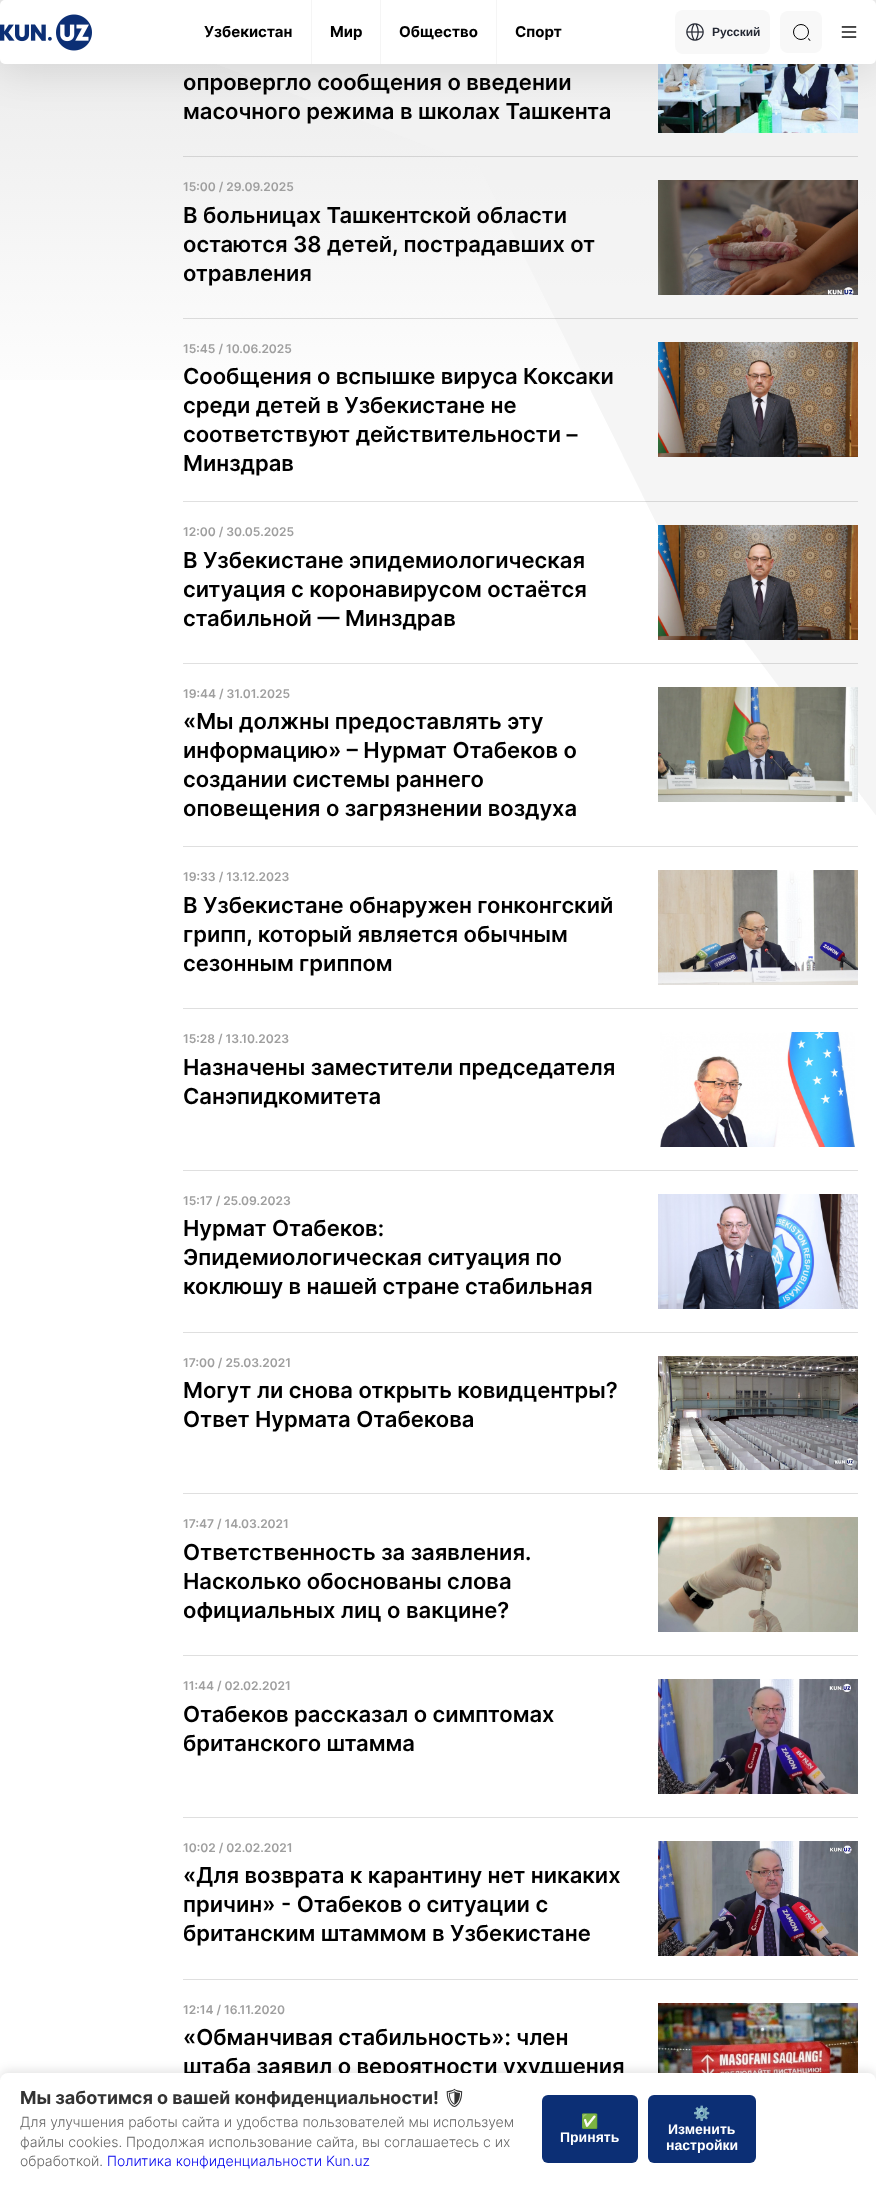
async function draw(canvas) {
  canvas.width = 876
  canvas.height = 2185
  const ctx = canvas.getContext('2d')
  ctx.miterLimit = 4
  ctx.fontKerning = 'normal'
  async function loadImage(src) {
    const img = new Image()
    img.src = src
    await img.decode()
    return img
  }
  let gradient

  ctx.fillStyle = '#fff'
  ctx.fillRect(0, 0, 876, 2185)
  gradient = ctx.createLinearGradient(438, -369, 438, 431)
  gradient.addColorStop(0, '#d8d8d8')
  gradient.addColorStop(1, '#fff')
  ctx.fillStyle = gradient
  ctx.fillRect(0, 0, 876, 380)
  ctx.drawImage(await loadImage('image3.png'), 216, 0, 660, 815)
  ctx.drawImage(await loadImage('image4.png'), 658, 64, 200, 69)
  ctx.fillStyle = '#0000001f'
  ctx.filter = 'blur(22px)'
  ctx.beginPath()
  ctx.roundRect(0, 4, 876, 64, 5)
  ctx.fill()
  ctx.filter = 'none'
  ctx.fillStyle = '#fff'
  ctx.beginPath()
  ctx.roundRect(0, 0, 876, 64, 5)
  ctx.fill()
  ctx.drawImage(await loadImage('image0.png'), 0, 14, 92, 37)
  ctx.fillStyle = '#f5f5f5'
  ctx.fillRect(311, 0, 1, 64)
  ctx.font = 'bold 15px Inter'
  ctx.fillStyle = '#000'
  ctx.fillText('Узбекистан', 204, 37)
  ctx.fillStyle = '#f5f5f5'
  ctx.fillRect(380, 0, 1, 64)
  ctx.fillStyle = '#000'
  ctx.fillText('Мир', 330, 37)
  ctx.fillStyle = '#f5f5f5'
  ctx.fillRect(496, 0, 1, 64)
  ctx.fillStyle = '#000'
  ctx.fillText('Общество', 399, 37)
  ctx.fillText('Спорт', 515, 37)
  ctx.fillStyle = '#f8f8f8'
  ctx.beginPath()
  ctx.roundRect(675, 10, 95, 44, 8)
  ctx.fill()
  ctx.drawImage(await loadImage('image1.png'), 686, 23, 18, 18)
  ctx.font = 'bold 12px Liberation Sans'
  ctx.fillStyle = '#242833'
  ctx.fillText('Русский', 712, 36)
  ctx.fillStyle = '#f8f8f8'
  ctx.beginPath()
  ctx.roundRect(780, 11, 42, 42, 8)
  ctx.fill()
  ctx.beginPath()
  ctx.arc(801, 32, 7.5, 0, 2 * Math.PI)
  ctx.strokeStyle = '#000'
  ctx.stroke()
  ctx.fillStyle = '#000'
  ctx.beginPath()
  ctx.moveTo(808.5, 38)
  ctx.lineTo(810.5, 40.5)
  ctx.lineTo(810, 41)
  ctx.lineTo(808, 39)
  ctx.closePath()
  ctx.fill()
  ctx.drawImage(await loadImage('image2.png'), 841, 26, 16, 12)
  ctx.fillStyle = '#d4d4d4'
  ctx.fillRect(183, 156, 675, 1)
  ctx.font = '600 22px Inter'
  ctx.fillStyle = '#000'
  ctx.fillText('опровергло сообщения о введении', 183, 90)
  ctx.fillText('масочного режима в школах Ташкента', 183, 119)
  ctx.fillStyle = '#0000001f'
  ctx.fillRect(183, 318, 675, 1)
  ctx.font = '600 12px Inter'
  ctx.fillStyle = '#9f9f9f'
  ctx.fillText('15:00 / 29.09.2025', 183, 191)
  ctx.font = '600 22px Inter'
  ctx.fillStyle = '#000'
  ctx.fillText('В больницах Ташкентской области', 183, 223)
  ctx.fillText('остаются 38 детей, пострадавших от', 183, 252)
  ctx.fillText('отравления', 183, 281)
  ctx.drawImage(await loadImage('image5.png'), 658, 180, 200, 115)
  ctx.fillStyle = '#0000001f'
  ctx.fillRect(183, 501, 675, 1)
  ctx.font = '600 12px Inter'
  ctx.fillStyle = '#9f9f9f'
  ctx.fillText('15:45 / 10.06.2025', 183, 353)
  ctx.font = '600 22px Inter'
  ctx.fillStyle = '#000'
  ctx.fillText('Сообщения о вспышке вируса Коксаки', 183, 384)
  ctx.fillText('среди детей в Узбекистане не', 183, 413)
  ctx.fillText('соответствуют действительности –', 183, 442)
  ctx.fillText('Минздрав', 183, 471)
  ctx.drawImage(await loadImage('image6.png'), 658, 342, 200, 115)
  ctx.fillStyle = '#0000001f'
  ctx.fillRect(183, 663, 675, 1)
  ctx.font = '600 12px Inter'
  ctx.fillStyle = '#9f9f9f'
  ctx.fillText('12:00 / 30.05.2025', 183, 536)
  ctx.font = '600 22px Inter'
  ctx.fillStyle = '#000'
  ctx.fillText('В Узбекистане эпидемиологическая', 183, 568)
  ctx.fillText('ситуация с коронавирусом остаётся', 183, 597)
  ctx.fillText('стабильной — Минздрав', 183, 626)
  ctx.drawImage(await loadImage('image7.png'), 658, 525, 200, 115)
  ctx.fillStyle = '#dfdfdf'
  ctx.fillRect(183, 846, 675, 1)
  ctx.font = '600 12px Inter'
  ctx.fillStyle = '#9f9f9f'
  ctx.fillText('19:44 / 31.01.2025', 183, 698)
  ctx.font = '600 22px Inter'
  ctx.fillStyle = '#000'
  ctx.fillText('«Мы должны предоставлять эту', 183, 729)
  ctx.fillText('информацию» – Нурмат Отабеков о', 183, 758)
  ctx.fillText('создании системы раннего', 183, 787)
  ctx.fillText('оповещения о загрязнении воздуха', 183, 816)
  ctx.drawImage(await loadImage('image8.png'), 658, 687, 200, 115)
  ctx.fillStyle = '#dfdfdf'
  ctx.fillRect(183, 1008, 675, 1)
  ctx.font = '600 12px Inter'
  ctx.fillStyle = '#9f9f9f'
  ctx.fillText('19:33 / 13.12.2023', 183, 881)
  ctx.font = '600 22px Inter'
  ctx.fillStyle = '#000'
  ctx.fillText('В Узбекистане обнаружен гонконгский', 183, 913)
  ctx.fillText('грипп, который является обычным', 183, 942)
  ctx.fillText('сезонным гриппом', 183, 971)
  ctx.drawImage(await loadImage('image9.png'), 658, 870, 200, 115)
  ctx.fillStyle = '#dfdfdf'
  ctx.fillRect(183, 1170, 675, 1)
  ctx.font = '600 12px Inter'
  ctx.fillStyle = '#9f9f9f'
  ctx.fillText('15:28 / 13.10.2023', 183, 1043)
  ctx.font = '600 22px Inter'
  ctx.fillStyle = '#000'
  ctx.fillText('Назначены заместители председателя', 183, 1075)
  ctx.fillText('Санэпидкомитета', 183, 1104)
  ctx.drawImage(await loadImage('image10.png'), 660, 1032, 195, 115)
  ctx.fillStyle = '#dfdfdf'
  ctx.fillRect(183, 1332, 675, 1)
  ctx.font = '600 12px Inter'
  ctx.fillStyle = '#9f9f9f'
  ctx.fillText('15:17 / 25.09.2023', 183, 1205)
  ctx.font = '600 22px Inter'
  ctx.fillStyle = '#000'
  ctx.fillText('Нурмат Отабеков:', 183, 1236)
  ctx.fillText('Эпидемиологическая ситуация по', 183, 1265)
  ctx.fillText('коклюшу в нашей стране стабильная', 183, 1294)
  ctx.drawImage(await loadImage('image11.png'), 658, 1194, 200, 115)
  ctx.fillStyle = '#dfdfdf'
  ctx.fillRect(183, 1493, 675, 1)
  ctx.font = '600 12px Inter'
  ctx.fillStyle = '#9f9f9f'
  ctx.fillText('17:00 / 25.03.2021', 183, 1367)
  ctx.font = '600 22px Inter'
  ctx.fillStyle = '#000'
  ctx.fillText('Могут ли снова открыть ковидцентры?', 183, 1398)
  ctx.fillText('Ответ Нурмата Отабекова', 183, 1427)
  ctx.drawImage(await loadImage('image12.png'), 658, 1356, 200, 114)
  ctx.fillStyle = '#dfdfdf'
  ctx.fillRect(183, 1655, 675, 1)
  ctx.font = '600 12px Inter'
  ctx.fillStyle = '#9f9f9f'
  ctx.fillText('17:47 / 14.03.2021', 183, 1528)
  ctx.font = '600 22px Inter'
  ctx.fillStyle = '#000'
  ctx.fillText('Ответственность за заявления.', 183, 1560)
  ctx.fillText('Насколько обоснованы слова', 183, 1589)
  ctx.fillText('официальных лиц о вакцине?', 183, 1618)
  ctx.drawImage(await loadImage('image13.png'), 658, 1517, 200, 115)
  ctx.fillStyle = '#dfdfdf'
  ctx.fillRect(183, 1817, 675, 1)
  ctx.font = '600 12px Inter'
  ctx.fillStyle = '#9f9f9f'
  ctx.fillText('11:44 / 02.02.2021', 183, 1690)
  ctx.font = '600 22px Inter'
  ctx.fillStyle = '#000'
  ctx.fillText('Отабеков рассказал о симптомах', 183, 1722)
  ctx.fillText('британского штамма', 183, 1751)
  ctx.drawImage(await loadImage('image14.png'), 658, 1679, 200, 115)
  ctx.fillStyle = '#dfdfdf'
  ctx.fillRect(183, 1979, 675, 1)
  ctx.font = '600 12px Inter'
  ctx.fillStyle = '#9f9f9f'
  ctx.fillText('10:02 / 02.02.2021', 183, 1852)
  ctx.font = '600 22px Inter'
  ctx.fillStyle = '#000'
  ctx.fillText('«Для возврата к карантину нет никаких', 183, 1883)
  ctx.fillText('причин» - Отабеков о ситуации с', 183, 1912)
  ctx.fillText('британским штаммом в Узбекистане', 183, 1941)
  ctx.drawImage(await loadImage('image15.png'), 658, 1841, 200, 115)
  ctx.font = '600 12px Inter'
  ctx.fillStyle = '#9f9f9f'
  ctx.fillText('12:14 / 16.11.2020', 183, 2014)
  ctx.font = '600 22px Inter'
  ctx.fillStyle = '#000'
  ctx.fillText('«Обманчивая стабильность»: член', 183, 2045)
  ctx.fillText('штаба заявил о вероятности ухудшения', 183, 2074)
  ctx.drawImage(await loadImage('image16.png'), 658, 2003, 200, 70)
  ctx.fillStyle = '#0000001a'
  ctx.filter = 'blur(5px)'
  ctx.beginPath()
  ctx.roundRect(0, 2070, 876, 112, 8)
  ctx.fill()
  ctx.filter = 'none'
  ctx.fillStyle = '#fff'
  ctx.beginPath()
  ctx.roundRect(0, 2073, 876, 112, [8, 8, 0, 0])
  ctx.fill()
  ctx.font = 'bold 18px Inter'
  ctx.fillStyle = '#333'
  ctx.fillText('Мы заботимся о вашей конфиденциальности!', 20, 2104)
  ctx.font = 'bold 18px Noto Emoji'
  ctx.fillText('🛡', 443, 2104)
  ctx.font = '300 14px Inter'
  ctx.fillStyle = '#666'
  ctx.fillText('Для улучшения работы сайта и удобства пользователей мы используем', 20, 2127)
  ctx.fillText('файлы cookies. Продолжая использование сайта, вы соглашаетесь с их', 20, 2147)
  ctx.fillText('обработкой.', 20, 2166)
  ctx.fillStyle = '#00e'
  ctx.fillText('Политика конфиденциальности Kun.uz', 107, 2166)
  ctx.fillStyle = '#0c2f75'
  ctx.beginPath()
  ctx.roundRect(542, 2095, 96, 68, 6)
  ctx.fill()
  ctx.font = 'bold 14px Noto Color Emoji'
  ctx.fillStyle = '#fff'
  ctx.fillText('✅', 581, 2126)
  ctx.font = 'bold 14px Liberation Sans'
  ctx.fillText('Принять', 560, 2142)
  ctx.fillStyle = '#0c2f75'
  ctx.beginPath()
  ctx.roundRect(648, 2095, 108, 68, 6)
  ctx.fill()
  ctx.font = 'bold 14px Noto Color Emoji'
  ctx.fillStyle = '#fff'
  ctx.fillText('⚙️', 693, 2118)
  ctx.font = 'bold 14px Liberation Sans'
  ctx.fillText('Изменить', 668, 2134)
  ctx.fillText('настройки', 666, 2150)
}

draw(document.querySelector('canvas'))
